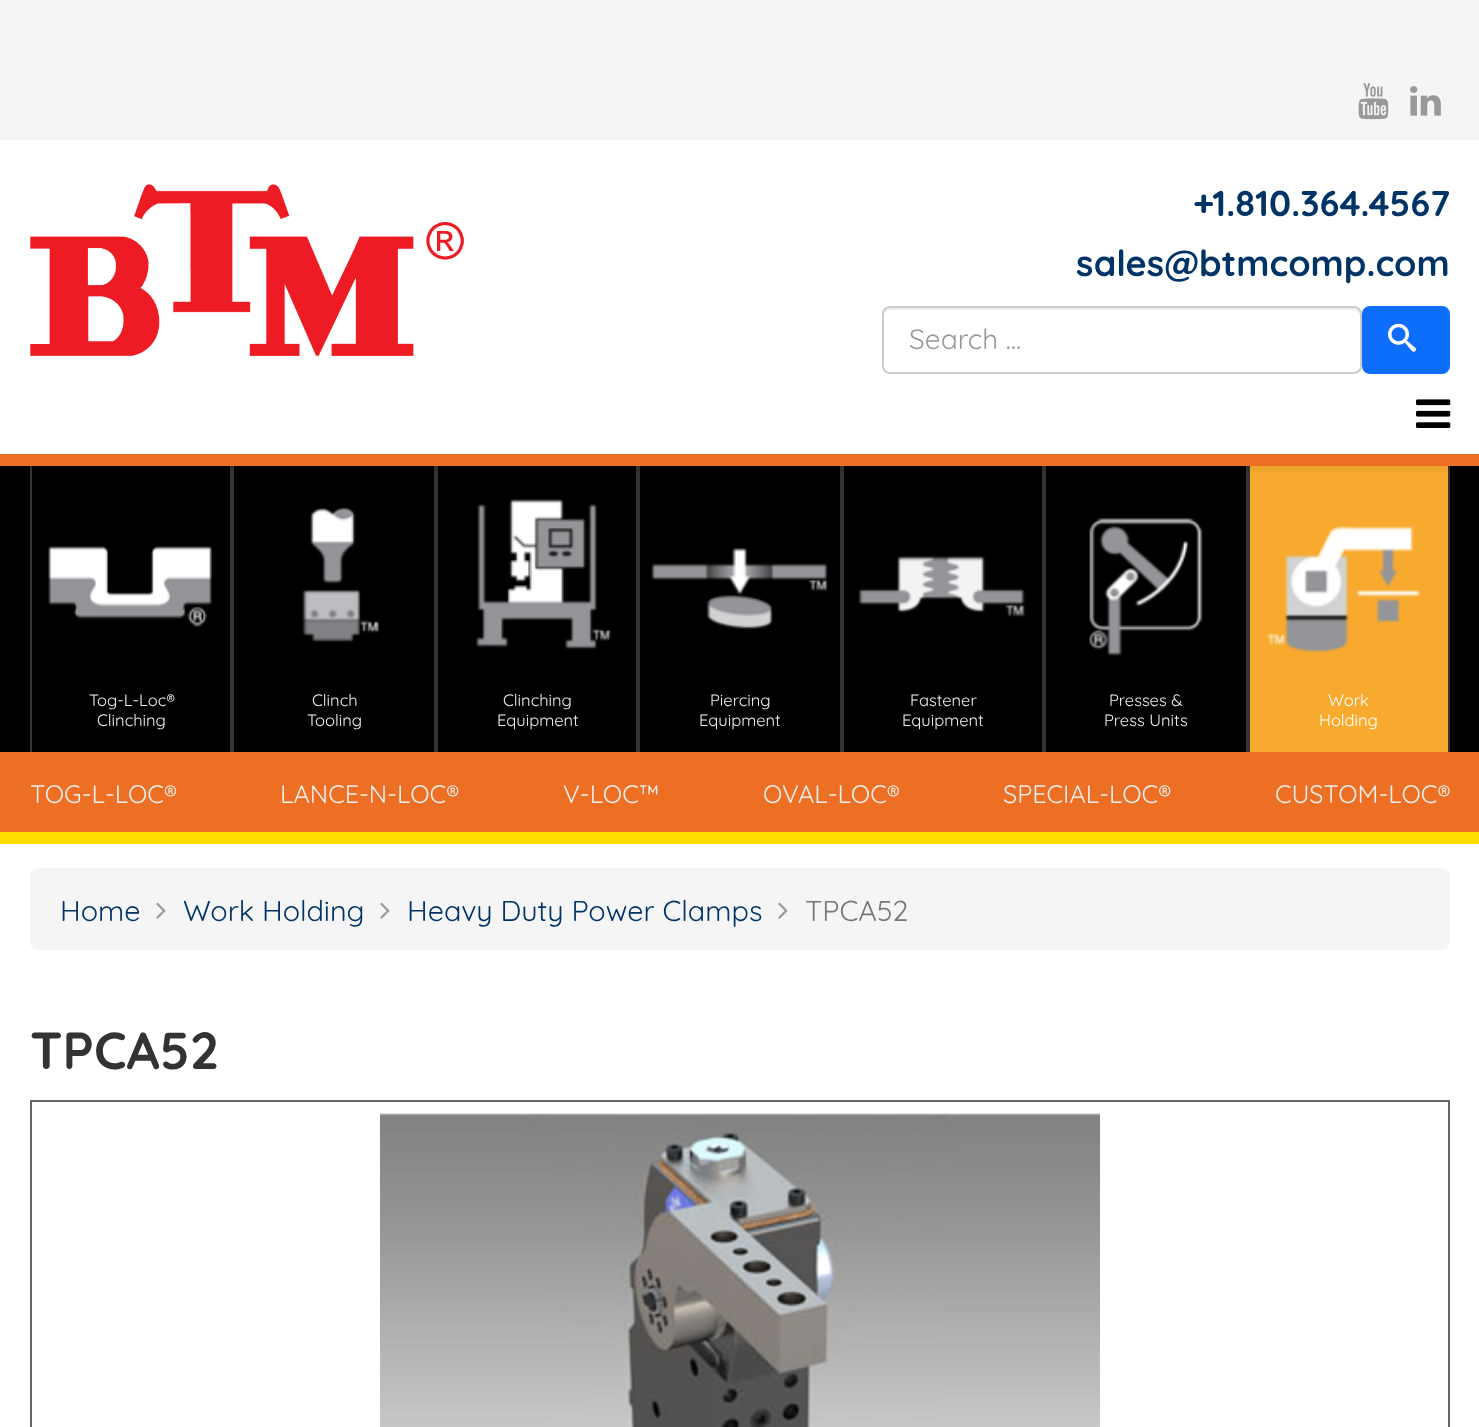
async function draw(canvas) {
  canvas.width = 1479
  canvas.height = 1427
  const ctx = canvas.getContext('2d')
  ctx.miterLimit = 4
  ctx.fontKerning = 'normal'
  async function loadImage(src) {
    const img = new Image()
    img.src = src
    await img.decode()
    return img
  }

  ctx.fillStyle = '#fff'
  ctx.fillRect(0, 0, 1479, 1427)
  ctx.fillStyle = '#f5f5f5'
  ctx.fillRect(0, 0, 1479, 140)
  ctx.drawImage(await loadImage('image0.png'), 1358, 83, 31, 37)
  ctx.drawImage(await loadImage('image1.png'), 1410, 86, 31, 30)
  ctx.fillStyle = '#000'
  ctx.fillRect(0, 466, 1479, 286)
  ctx.fillStyle = '#333'
  ctx.fillRect(230, 466, 4, 286)
  ctx.fillRect(30, 466, 2, 286)
  ctx.fillRect(434, 466, 4, 286)
  ctx.fillRect(636, 466, 4, 286)
  ctx.fillRect(840, 466, 4, 286)
  ctx.fillRect(1042, 466, 4, 286)
  ctx.fillRect(1246, 466, 4, 286)
  ctx.fillRect(1448, 466, 2, 286)
  ctx.fillStyle = '#f8aa2e'
  ctx.fillRect(1250, 466, 198, 286)
  ctx.save()
  ctx.beginPath()
  ctx.rect(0, 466, 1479, 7)
  ctx.clip()
  ctx.fillStyle = '#0000000d'
  ctx.filter = 'blur(3px)'
  ctx.beginPath()
  ctx.rect(0, 146, 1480, 326)
  ctx.fill()
  ctx.filter = 'none'
  ctx.restore()
  ctx.fillStyle = '#ed6f23'
  ctx.fillRect(0, 454, 1479, 12)
  ctx.drawImage(await loadImage('image2.png'), 30, 184, 434, 172)
  ctx.font = 'bold 36px Quicksand'
  ctx.fillStyle = '#036'
  ctx.fillText('+1.810.364.4567', 1193, 216)
  ctx.fillText('sales@btmcomp.com', 1076, 276)
  ctx.fillStyle = '#ececec'
  ctx.beginPath()
  ctx.moveTo(890, 310)
  ctx.lineTo(1354, 310)
  ctx.bezierCurveTo(1357, 310, 1360, 313, 1360, 316)
  ctx.bezierCurveTo(1360, 312, 1359, 308, 1354, 308)
  ctx.lineTo(890, 308)
  ctx.bezierCurveTo(885, 308, 884, 312, 884, 316)
  ctx.bezierCurveTo(884, 313, 887, 310, 890, 310)
  ctx.closePath()
  ctx.fill()
  ctx.beginPath()
  ctx.roundRect(883, 307, 478, 66, 7)
  ctx.strokeStyle = '#ccc'
  ctx.lineWidth = 2
  ctx.stroke()
  ctx.font = '28px Quicksand'
  ctx.fillStyle = '#999'
  ctx.fillText('Search ...', 909, 349)
  ctx.fillStyle = '#0d6efd'
  ctx.beginPath()
  ctx.roundRect(1363, 307, 86, 66, 7)
  ctx.fill()
  ctx.strokeStyle = '#0d6efd'
  ctx.stroke()
  ctx.drawImage(await loadImage('image3.png'), 1388, 323, 28, 29)
  ctx.drawImage(await loadImage('image4.png'), 1416, 399, 35, 29)
  ctx.drawImage(await loadImage('image5.png'), 48, 546, 164, 82)
  ctx.font = '16.5px Quicksand'
  ctx.fillStyle = '#eee'
  ctx.fillText('Tog-L-Loc®', 89, 706)
  ctx.fillText('Clinching', 97, 726)
  ctx.drawImage(await loadImage('image6.png'), 302, 507, 77, 136)
  ctx.fillText('Clinch', 312, 706)
  ctx.fillText('Tooling', 307, 726)
  ctx.drawImage(await loadImage('image7.png'), 476, 499, 135, 151)
  ctx.fillText('Clinching', 503, 706)
  ctx.fillText('Equipment', 497, 726)
  ctx.drawImage(await loadImage('image8.png'), 651, 548, 177, 82)
  ctx.fillText('Piercing', 710, 706)
  ctx.fillText('Equipment', 699, 726)
  ctx.drawImage(await loadImage('image9.png'), 858, 556, 168, 61)
  ctx.fillText('Fastener', 910, 706)
  ctx.fillText('Equipment', 902, 726)
  ctx.drawImage(await loadImage('image10.png'), 1089, 517, 114, 139)
  ctx.fillText('Presses &', 1109, 706)
  ctx.fillText('Press Units', 1104, 726)
  ctx.drawImage(await loadImage('image11.png'), 1266, 526, 155, 127)
  ctx.fillStyle = '#fff'
  ctx.fillText('Work', 1328, 706)
  ctx.fillText('Holding', 1319, 726)
  ctx.fillStyle = '#ed6f23'
  ctx.fillRect(0, 752, 1479, 80)
  ctx.fillStyle = '#fd0'
  ctx.fillRect(0, 832, 1479, 12)
  ctx.font = '25.25px Quicksand'
  ctx.fillStyle = '#eee'
  ctx.fillText('TOG-L-LOC®', 30, 803)
  ctx.fillText('LANCE-N-LOC®', 280, 803)
  ctx.fillText('V-LOC™', 563, 803)
  ctx.fillText('OVAL-LOC®', 763, 803)
  ctx.fillText('SPECIAL-LOC®', 1003, 803)
  ctx.fillText('CUSTOM-LOC®', 1275, 803)
  ctx.fillStyle = '#f5f5f5'
  ctx.beginPath()
  ctx.roundRect(30, 868, 1420, 82, 8)
  ctx.fill()
  ctx.font = '28.75px Quicksand'
  ctx.fillStyle = '#036'
  ctx.fillText('Home', 60, 921)
  ctx.drawImage(await loadImage('image12.png'), 156, 902, 10, 17)
  ctx.fillText('Work Holding', 183, 921)
  ctx.drawImage(await loadImage('image12.png'), 380, 902, 10, 17)
  ctx.fillText('Heavy Duty Power Clamps', 407, 921)
  ctx.drawImage(await loadImage('image12.png'), 778, 902, 10, 17)
  ctx.fillStyle = '#777'
  ctx.fillText('TPCA52', 805, 921)
  ctx.font = 'bold 52px Quicksand'
  ctx.fillStyle = '#333'
  ctx.fillText('TPCA52', 30, 1069)
  ctx.strokeStyle = '#666'
  ctx.strokeRect(31, 1101, 1418, 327)
  ctx.drawImage(await loadImage('image13.png'), 380, 1113, 720, 314)
}

draw(document.querySelector('canvas'))
